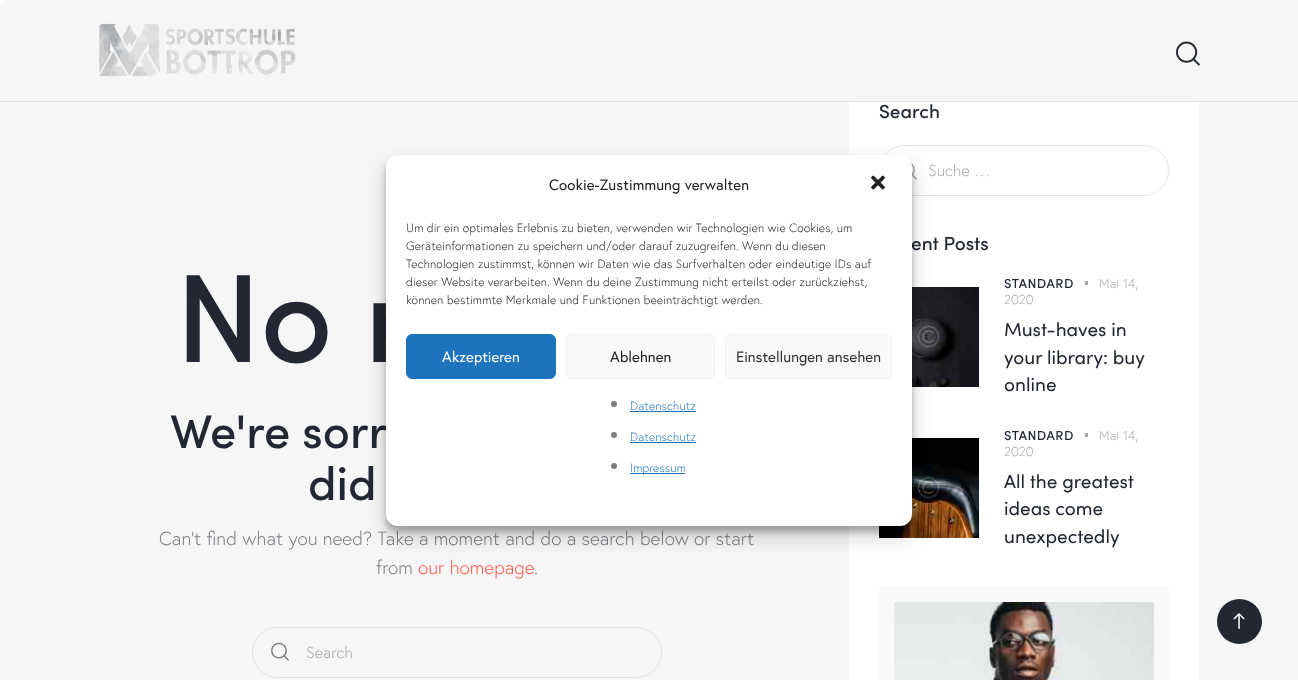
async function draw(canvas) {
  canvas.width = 1298
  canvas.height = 680
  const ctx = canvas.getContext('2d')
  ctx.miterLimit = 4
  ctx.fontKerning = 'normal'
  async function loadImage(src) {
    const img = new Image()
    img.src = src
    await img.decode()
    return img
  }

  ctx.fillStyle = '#f6f6f6'
  ctx.fillRect(0, 0, 1298, 680)
  ctx.fillStyle = '#fff'
  ctx.beginPath()
  ctx.arc(0, 0, 4, 0, 2 * Math.PI)
  ctx.fill()
  ctx.fillStyle = '#e2e2e2'
  ctx.fillRect(0, 101, 1298, 1)
  ctx.drawImage(await loadImage('image0.png'), 99, 23, 197, 54)
  ctx.drawImage(await loadImage('image1.png'), 1176, 41, 24, 25)
  ctx.font = '500 126px Sofia'
  ctx.fillStyle = '#222733'
  ctx.fillText('No r', 175, 362)
  ctx.font = '500 47px Sofia'
  ctx.fillText('We\'re sorr', 170, 448)
  ctx.fillText('did', 308, 500)
  ctx.font = '300 19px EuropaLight'
  ctx.fillStyle = '#7a7e83'
  ctx.fillText('Can\'t find what you need? Take a moment and do a search below or start', 159, 545)
  ctx.fillText('from', 376, 574)
  ctx.fillStyle = '#ff5b4a'
  ctx.fillText('our homepage', 418, 574)
  ctx.fillStyle = '#7a7e83'
  ctx.fillText('.', 534, 574)
  ctx.beginPath()
  ctx.roundRect(252.5, 627.5, 409, 50, 25)
  ctx.strokeStyle = '#e2e2e2'
  ctx.stroke()
  ctx.drawImage(await loadImage('image2.png'), 271, 642, 18, 19)
  ctx.letterSpacing = '0.1px'
  ctx.font = '300 16px EuropaLight'
  ctx.fillStyle = '#a5a6aa'
  ctx.fillText('Search', 306, 658)
  ctx.fillStyle = '#fff'
  ctx.fillRect(849, 102, 350, 578)
  ctx.letterSpacing = '0px'
  ctx.font = '500 19px Sofia'
  ctx.fillStyle = '#222733'
  ctx.fillText('Search', 879, 118)
  ctx.beginPath()
  ctx.roundRect(879.5, 145.5, 289, 50, 25)
  ctx.stroke()
  ctx.drawImage(await loadImage('image3.png'), 910, 162, 7, 18)
  ctx.letterSpacing = '0.1px'
  ctx.font = '300 16px EuropaLight'
  ctx.fillStyle = '#a5a6aa'
  ctx.fillText('Suche …', 928, 176)
  ctx.letterSpacing = '0px'
  ctx.font = '500 19px Sofia'
  ctx.fillStyle = '#222733'
  ctx.fillText('ent Posts', 911, 250)
  ctx.drawImage(await loadImage('image4.png'), 912, 287, 67, 100)
  ctx.letterSpacing = '0.5px'
  ctx.font = '500 13px Sofia'
  ctx.fillText('STANDARD', 1004, 288)
  ctx.fillStyle = '#a5a6aa'
  ctx.fillRect(1085, 281, 3, 4)
  ctx.letterSpacing = '0.1px'
  ctx.font = '300 13px EuropaLight'
  ctx.fillText('Mai 14,', 1099, 288)
  ctx.fillText('2020', 1004, 304)
  ctx.letterSpacing = '0px'
  ctx.font = '19px Sofia'
  ctx.fillStyle = '#222733'
  ctx.fillText('Must-haves in', 1004, 336)
  ctx.fillText('your library: buy', 1004, 364)
  ctx.fillText('online', 1004, 391)
  ctx.drawImage(await loadImage('image5.png'), 879, 438, 100, 100)
  ctx.letterSpacing = '0.5px'
  ctx.font = '500 13px Sofia'
  ctx.fillText('STANDARD', 1004, 440)
  ctx.fillStyle = '#a5a6aa'
  ctx.fillRect(1085, 433, 3, 4)
  ctx.letterSpacing = '0.1px'
  ctx.font = '300 13px EuropaLight'
  ctx.fillText('Mai 14,', 1099, 440)
  ctx.fillText('2020', 1004, 456)
  ctx.letterSpacing = '0px'
  ctx.font = '19px Sofia'
  ctx.fillStyle = '#222733'
  ctx.fillText('All the greatest', 1004, 488)
  ctx.fillText('ideas come', 1004, 515)
  ctx.fillText('unexpectedly', 1004, 543)
  ctx.fillStyle = '#f9f9f9'
  ctx.fillRect(879, 587, 290, 93)
  ctx.drawImage(await loadImage('image6.png'), 894, 602, 260, 78)
  ctx.fillStyle = '#0000003b'
  ctx.filter = 'blur(3px)'
  ctx.beginPath()
  ctx.roundRect(386, 161, 526, 371, 12)
  ctx.fill()
  ctx.filter = 'none'
  ctx.fillStyle = '#00000030'
  ctx.filter = 'blur(10px)'
  ctx.beginPath()
  ctx.roundRect(386, 165, 526, 371, 12)
  ctx.fill()
  ctx.filter = 'none'
  ctx.fillStyle = '#fff'
  ctx.beginPath()
  ctx.roundRect(386, 155, 526, 371, 12)
  ctx.fill()
  ctx.letterSpacing = '0.1px'
  ctx.font = '15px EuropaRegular'
  ctx.fillStyle = '#222'
  ctx.fillText('Cookie-Zustimmung verwalten', 549, 190)
  ctx.drawImage(await loadImage('image7.png'), 871, 175, 14, 15)
  ctx.font = '300 12px EuropaLight'
  ctx.fillText('Um dir ein optimales Erlebnis zu bieten, verwenden wir Technologien wie Cookies, um', 406, 232)
  ctx.fillText('Geräteinformationen zu speichern und/oder darauf zuzugreifen. Wenn du diesen', 406, 250)
  ctx.fillText('Technologien zustimmst, können wir Daten wie das Surfverhalten oder eindeutige IDs auf', 406, 268)
  ctx.fillText('dieser Website verarbeiten. Wenn du deine Zustimmung nicht erteilst oder zurückziehst,', 406, 286)
  ctx.fillText('können bestimmte Merkmale und Funktionen beeinträchtigt werden.', 406, 304)
  ctx.fillStyle = '#1e73be'
  ctx.beginPath()
  ctx.roundRect(406.5, 334.5, 149, 44, 5.5)
  ctx.fill()
  ctx.strokeStyle = '#1e73be'
  ctx.stroke()
  ctx.letterSpacing = '0px'
  ctx.font = '15px EuropaRegular'
  ctx.fillStyle = '#fff'
  ctx.fillText('Akzeptieren', 442, 362)
  ctx.fillStyle = '#f9f9f9'
  ctx.beginPath()
  ctx.roundRect(566.5, 334.5, 148, 44, 5.5)
  ctx.fill()
  ctx.strokeStyle = '#f2f2f2'
  ctx.stroke()
  ctx.fillStyle = '#222'
  ctx.fillText('Ablehnen', 610, 362)
  ctx.fillStyle = '#f9f9f9'
  ctx.beginPath()
  ctx.roundRect(725.5, 334.5, 166, 44, 5.5)
  ctx.fill()
  ctx.stroke()
  ctx.fillStyle = '#333'
  ctx.fillText('Einstellungen ansehen', 736, 362)
  ctx.fillStyle = '#7a7e83'
  ctx.beginPath()
  ctx.arc(614, 404, 3, 0, 2 * Math.PI)
  ctx.fill()
  ctx.letterSpacing = '0.1px'
  ctx.font = '300 12px EuropaLight'
  ctx.fillStyle = '#1e73be'
  ctx.fillText('Datenschutz', 630, 410)
  ctx.fillRect(630, 411, 66, 1)
  ctx.fillStyle = '#7a7e83'
  ctx.beginPath()
  ctx.arc(614, 435, 3, 0, 2 * Math.PI)
  ctx.fill()
  ctx.fillStyle = '#1e73be'
  ctx.fillText('Datenschutz', 630, 441)
  ctx.fillRect(630, 442, 66, 1)
  ctx.fillStyle = '#7a7e83'
  ctx.beginPath()
  ctx.arc(614, 466, 3, 0, 2 * Math.PI)
  ctx.fill()
  ctx.fillStyle = '#1e73be'
  ctx.fillRect(630, 473, 55, 1)
  ctx.fillText('Impressum', 630, 472)
  ctx.fillStyle = '#222733'
  ctx.beginPath()
  ctx.arc(1239.5, 621.5, 22.5, 0, 2 * Math.PI)
  ctx.fill()
  ctx.drawImage(await loadImage('image8.png'), 1233, 613, 12, 17)
}

draw(document.querySelector('canvas'))
